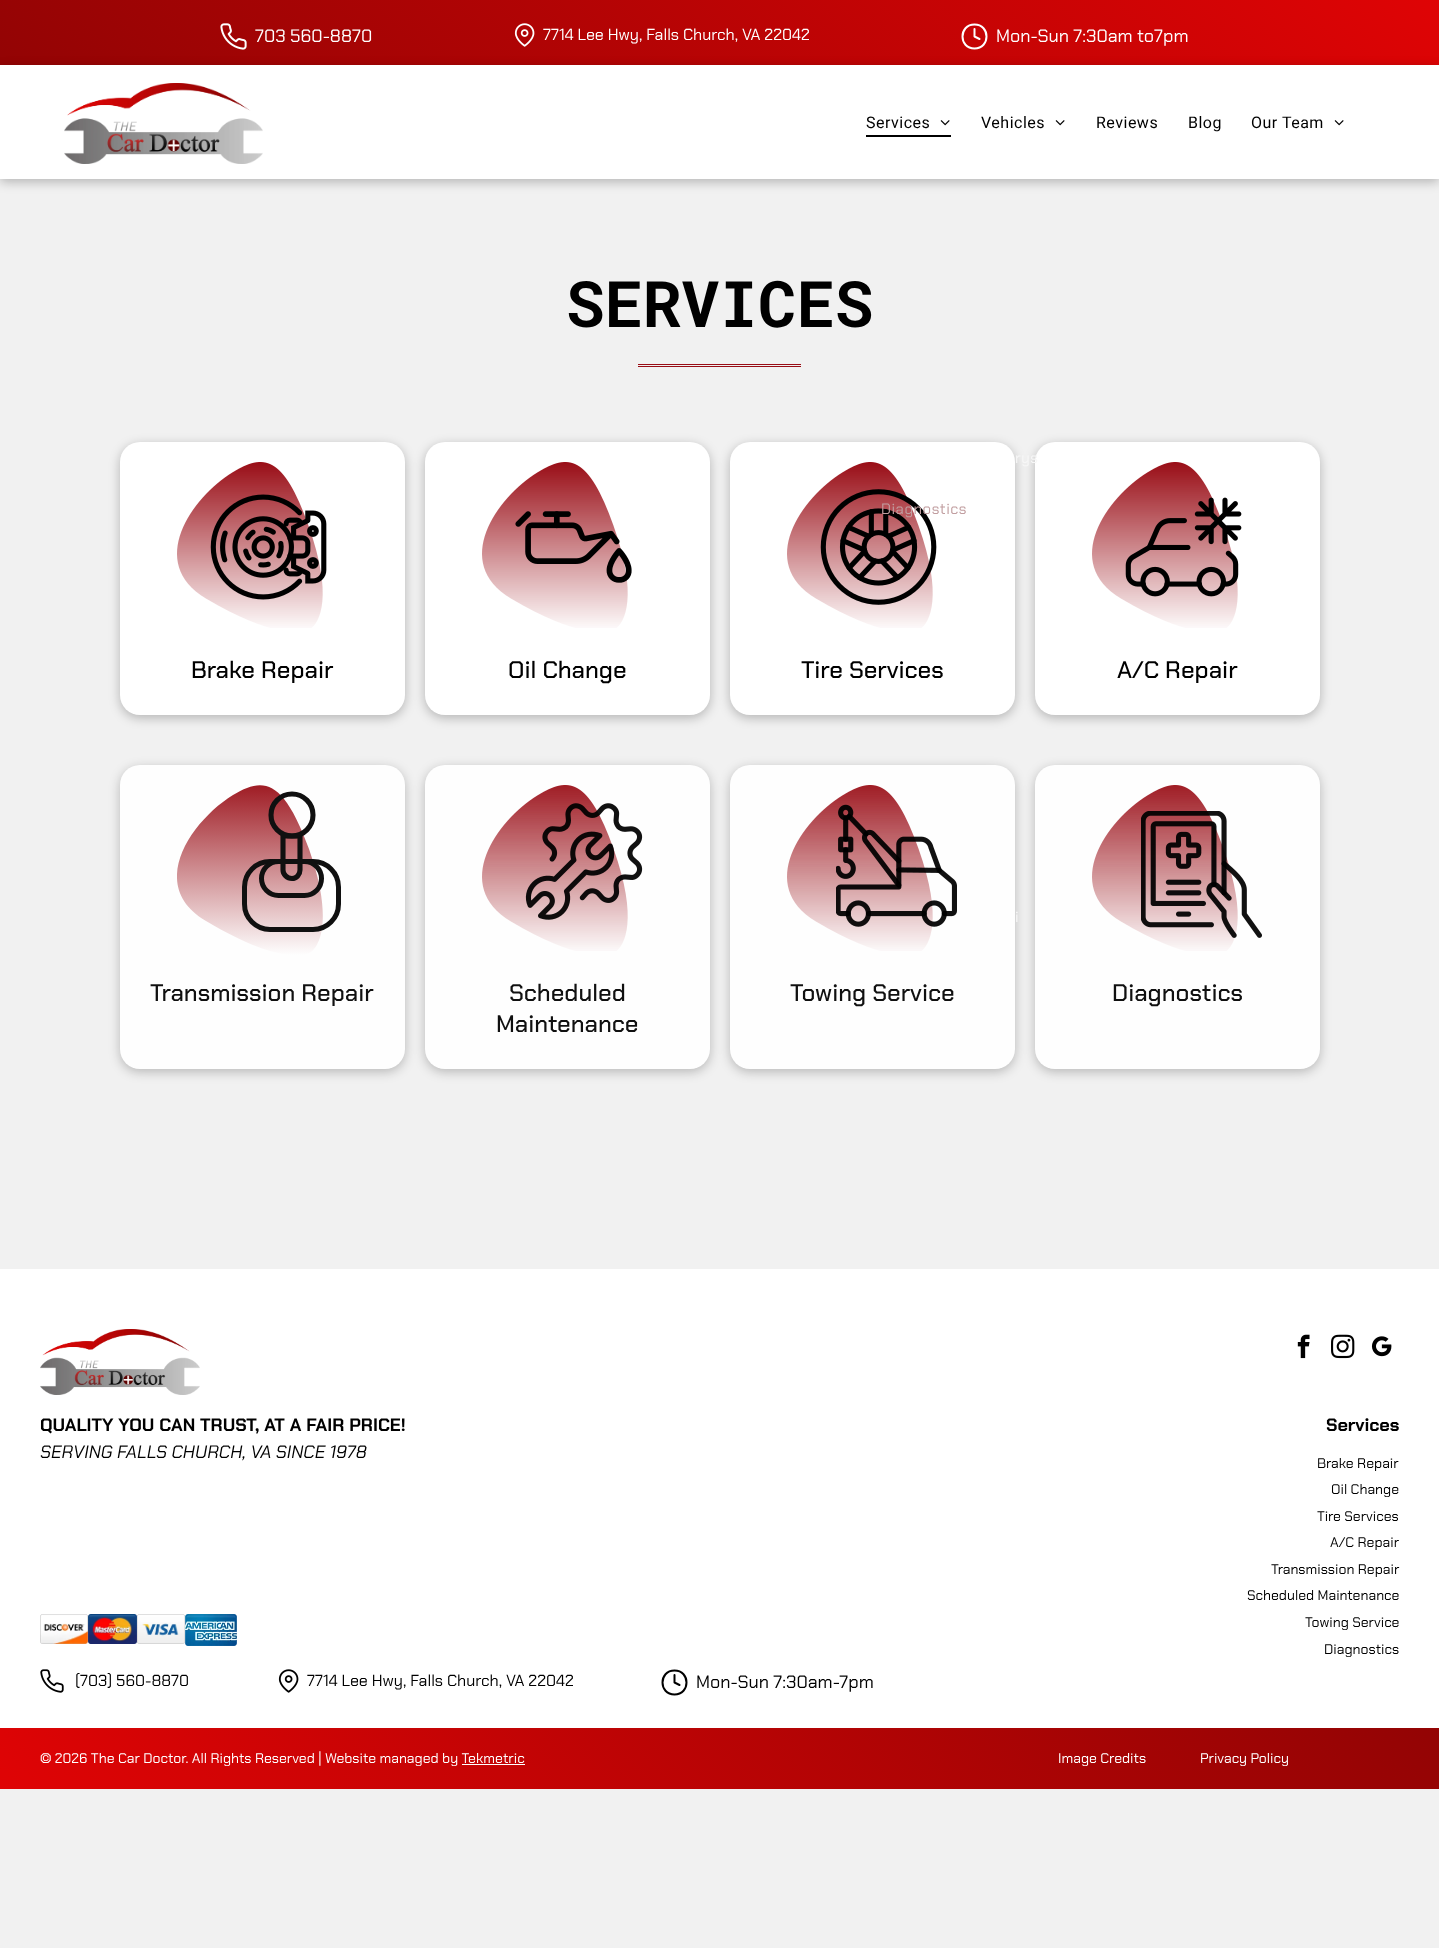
async function draw(canvas) {
  canvas.width = 1439
  canvas.height = 1948
  const ctx = canvas.getContext('2d')
  ctx.miterLimit = 4
  ctx.fontKerning = 'normal'
  async function loadImage(src) {
    const img = new Image()
    img.src = src
    await img.decode()
    return img
  }
  let gradient

  ctx.fillStyle = '#f1f1f1'
  ctx.fillRect(0, 0, 1439, 1948)
  gradient = ctx.createLinearGradient(342, 415, 1098, -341)
  gradient.addColorStop(0, '#930404')
  gradient.addColorStop(1, '#df0405')
  ctx.fillStyle = gradient
  ctx.fillRect(0, 0, 1439, 65)
  ctx.drawImage(await loadImage('image0.png'), 220, 23, 27, 27)
  ctx.font = '18px Chakra Petch'
  ctx.fillStyle = '#fff'
  ctx.fillText('703 560-8870', 255, 42)
  ctx.drawImage(await loadImage('image1.png'), 514, 23, 21, 24)
  ctx.font = '16px Chakra Petch'
  ctx.fillText('7714 Lee Hwy, Falls Church, VA 22042', 543, 40)
  ctx.beginPath()
  ctx.moveTo(974.5, 48.5)
  ctx.bezierCurveTo(990.5, 48.5, 990.5, 24.5, 974.5, 24.5)
  ctx.bezierCurveTo(958.5, 24.5, 958.5, 48.5, 974.5, 48.5)
  ctx.closePath()
  ctx.moveTo(974.5, 29)
  ctx.lineTo(974.5, 36.5)
  ctx.lineTo(979.5, 39)
  ctx.strokeStyle = '#fff'
  ctx.lineWidth = 2
  ctx.lineCap = 'round'
  ctx.lineJoin = 'round'
  ctx.stroke()
  ctx.font = '18px Chakra Petch'
  ctx.fillText('Mon-Sun 7:30am to7pm', 996, 42)
  ctx.fillStyle = '#00000040'
  ctx.filter = 'blur(5.5px)'
  ctx.beginPath()
  ctx.rect(0, 68, 1439, 114)
  ctx.fill()
  ctx.filter = 'none'
  ctx.fillStyle = '#fff'
  ctx.fillRect(0, 65, 1439, 114)
  ctx.drawImage(await loadImage('image2.png'), 64, 83, 199, 81)
  ctx.letterSpacing = '0.5px'
  ctx.font = '16px Roboto'
  ctx.fillStyle = '#000'
  ctx.fillText('Services', 866, 128)
  ctx.drawImage(await loadImage('image3.png'), 940, 120, 10, 6)
  ctx.fillRect(866, 135, 85, 2)
  ctx.fillStyle = '#00000040'
  ctx.filter = 'blur(5.5px)'
  ctx.beginPath()
  ctx.roundRect(730, 445, 285, 273, 20)
  ctx.fill()
  ctx.filter = 'none'
  ctx.fillStyle = '#fff'
  ctx.beginPath()
  ctx.roundRect(730, 442, 285, 273, 20)
  ctx.fill()
  ctx.drawImage(await loadImage('image6.png'), 787, 462, 150, 166)
  ctx.font = '15px Chakra Petch'
  ctx.fillStyle = '#c19ea0'
  ctx.fillText('Diagnostics', 881, 514)
  ctx.font = '16px Roboto'
  ctx.fillStyle = '#000'
  ctx.fillText('Vehicles', 981, 128)
  ctx.drawImage(await loadImage('image3.png'), 1055, 120, 10, 6)
  ctx.fillStyle = '#00000040'
  ctx.filter = 'blur(5.5px)'
  ctx.beginPath()
  ctx.roundRect(1035, 445, 285, 273, 20)
  ctx.fill()
  ctx.filter = 'none'
  ctx.fillStyle = '#fff'
  ctx.beginPath()
  ctx.roundRect(1035, 442, 285, 273, 20)
  ctx.fill()
  ctx.font = '15px Chakra Petch'
  ctx.fillStyle = '#f7f7f7'
  ctx.fillText('rys', 1015, 463)
  ctx.fillStyle = '#10101040'
  ctx.filter = 'blur(5.5px)'
  ctx.beginPath()
  ctx.roundRect(730, 768, 285, 304, 20)
  ctx.fill()
  ctx.filter = 'none'
  ctx.filter = 'blur(5.5px)'
  ctx.beginPath()
  ctx.roundRect(1035, 768, 285, 304, 20)
  ctx.fill()
  ctx.filter = 'none'
  ctx.fillStyle = '#f7f7f7'
  ctx.fillText('i', 1015, 922)
  ctx.font = '16px Roboto'
  ctx.fillStyle = '#000'
  ctx.fillText('Reviews', 1096, 128)
  ctx.fillText('Blog', 1188, 128)
  ctx.fillText('Our Team', 1251, 128)
  ctx.drawImage(await loadImage('image3.png'), 1334, 120, 10, 6)
  ctx.letterSpacing = '0px'
  ctx.font = 'bold 64px Roboto Mono'
  ctx.fillText('SERVICES', 566, 327)
  ctx.fillStyle = '#990d16'
  ctx.fillRect(638, 364, 163, 1)
  ctx.fillRect(638, 366, 163, 1)
  ctx.fillStyle = '#00000040'
  ctx.filter = 'blur(5.5px)'
  ctx.beginPath()
  ctx.roundRect(120, 445, 285, 273, 20)
  ctx.fill()
  ctx.filter = 'none'
  ctx.fillStyle = '#fff'
  ctx.beginPath()
  ctx.roundRect(120, 442, 285, 273, 20)
  ctx.fill()
  ctx.drawImage(await loadImage('image4.png'), 177, 462, 150, 166)
  ctx.font = '500 24px Chakra Petch'
  ctx.fillStyle = '#000'
  ctx.fillText('Brake Repair', 191, 678)
  ctx.fillStyle = '#00000040'
  ctx.filter = 'blur(5.5px)'
  ctx.beginPath()
  ctx.roundRect(425, 445, 285, 273, 20)
  ctx.fill()
  ctx.filter = 'none'
  ctx.fillStyle = '#fff'
  ctx.beginPath()
  ctx.roundRect(425, 442, 285, 273, 20)
  ctx.fill()
  ctx.drawImage(await loadImage('image5.png'), 482, 462, 150, 166)
  ctx.fillStyle = '#000'
  ctx.fillText('Oil Change', 508, 678)
  ctx.fillText('Tire Services', 801, 678)
  ctx.drawImage(await loadImage('image7.png'), 1092, 462, 150, 166)
  ctx.fillText('A/C Repair', 1117, 678)
  ctx.fillStyle = '#10101040'
  ctx.filter = 'blur(5.5px)'
  ctx.beginPath()
  ctx.roundRect(120, 768, 285, 304, 20)
  ctx.fill()
  ctx.filter = 'none'
  ctx.fillStyle = '#fefefe'
  ctx.beginPath()
  ctx.roundRect(120, 765, 285, 304, 20)
  ctx.fill()
  ctx.save()
  ctx.beginPath()
  ctx.rect(177, 785, 170, 170)
  ctx.clip()
  gradient = ctx.createLinearGradient(250, 785, 250, 955)
  gradient.addColorStop(0, '#9f1c24')
  gradient.addColorStop(1, '#fefefe')
  ctx.fillStyle = gradient
  ctx.beginPath()
  ctx.moveTo(311, 952)
  ctx.bezierCurveTo(302, 958, 271, 960, 206, 921)
  ctx.bezierCurveTo(146, 886, 191, 821, 233, 795)
  ctx.bezierCurveTo(263, 777, 283, 778, 309, 849)
  ctx.bezierCurveTo(334, 920, 319, 946, 311, 952)
  ctx.closePath()
  ctx.fill()
  ctx.restore()
  ctx.beginPath()
  ctx.moveTo(283, 836)
  ctx.lineTo(300, 836)
  ctx.lineTo(300, 870)
  ctx.bezierCurveTo(300, 874.5, 296.5, 878.5, 292, 878.5)
  ctx.bezierCurveTo(287, 878.5, 283, 874.5, 283, 870)
  ctx.closePath()
  ctx.strokeStyle = '#101010'
  ctx.lineWidth = 5.1
  ctx.stroke()
  ctx.beginPath()
  ctx.arc(292, 815, 21, 0, 2 * Math.PI)
  ctx.stroke()
  ctx.beginPath()
  ctx.roundRect(244.5, 861.5, 94, 68, 25.5)
  ctx.lineWidth = 5
  ctx.lineJoin = 'miter'
  ctx.stroke()
  ctx.beginPath()
  ctx.roundRect(261.5, 861.5, 60, 34, 17)
  ctx.stroke()
  ctx.fillStyle = '#101010'
  ctx.fillText('Transmission Repair', 150, 1001)
  ctx.fillStyle = '#10101040'
  ctx.filter = 'blur(5.5px)'
  ctx.beginPath()
  ctx.roundRect(425, 768, 285, 304, 20)
  ctx.fill()
  ctx.filter = 'none'
  ctx.fillStyle = '#fefefe'
  ctx.beginPath()
  ctx.roundRect(425, 765, 285, 304, 20)
  ctx.fill()
  ctx.drawImage(await loadImage('image8.png'), 482, 785, 161, 166)
  ctx.fillStyle = '#101010'
  ctx.fillText('Scheduled', 509, 1001)
  ctx.fillText('Maintenance', 496, 1032)
  ctx.fillStyle = '#fefefe'
  ctx.beginPath()
  ctx.roundRect(730, 765, 285, 304, 20)
  ctx.fill()
  ctx.drawImage(await loadImage('image9.png'), 787, 785, 170, 166)
  ctx.fillStyle = '#101010'
  ctx.fillText('Towing Service', 790, 1001)
  ctx.fillStyle = '#fefefe'
  ctx.beginPath()
  ctx.roundRect(1035, 765, 285, 304, 20)
  ctx.fill()
  ctx.drawImage(await loadImage('image10.png'), 1092, 785, 170, 166)
  ctx.fillStyle = '#101010'
  ctx.fillText('Diagnostics', 1112, 1001)
  ctx.fillStyle = '#fff'
  ctx.fillRect(0, 1269, 1439, 459)
  ctx.drawImage(await loadImage('image11.png'), 40, 1329, 160, 66)
  ctx.drawImage(await loadImage('image12.png'), 1297, 1334, 13, 25)
  ctx.drawImage(await loadImage('image13.png'), 1331, 1334, 24, 25)
  ctx.drawImage(await loadImage('image14.png'), 1371, 1336, 21, 21)
  ctx.font = 'bold 18px Chakra Petch'
  ctx.fillStyle = '#000'
  ctx.fillText('QUALITY YOU CAN TRUST, AT A FAIR PRICE!', 40, 1431)
  ctx.font = 'italic 18px Chakra Petch'
  ctx.fillText('SERVING FALLS CHURCH, VA SINCE 1978', 40, 1458)
  ctx.drawImage(await loadImage('image15.png'), 40, 1614, 48, 30)
  ctx.drawImage(await loadImage('image16.png'), 88, 1614, 49, 30)
  ctx.drawImage(await loadImage('image17.png'), 137, 1614, 48, 30)
  ctx.drawImage(await loadImage('image18.png'), 185, 1614, 52, 32)
  ctx.font = 'bold 18px Chakra Petch'
  ctx.fillText('Services', 1326, 1431)
  ctx.font = '14px Chakra Petch'
  ctx.fillText('Brake Repair', 1317, 1468)
  ctx.fillText('Oil Change', 1331, 1494)
  ctx.fillText('Tire Services', 1317, 1521)
  ctx.fillText('A/C Repair', 1330, 1547)
  ctx.fillText('Transmission Repair', 1271, 1574)
  ctx.fillText('Scheduled Maintenance', 1247, 1600)
  ctx.fillText('Towing Service', 1305, 1627)
  ctx.fillText('Diagnostics', 1324, 1654)
  ctx.drawImage(await loadImage('image19.png'), 40, 1669, 24, 24)
  ctx.font = '16px Chakra Petch'
  ctx.fillText('(703) 560-8870', 75, 1686)
  ctx.drawImage(await loadImage('image20.png'), 278, 1669, 21, 24)
  ctx.fillText('7714 Lee Hwy, Falls Church, VA 22042', 307, 1686)
  ctx.beginPath()
  ctx.moveTo(674.5, 1694.5)
  ctx.bezierCurveTo(690.5, 1694.5, 690.5, 1670.5, 674.5, 1670.5)
  ctx.bezierCurveTo(658.5, 1670.5, 658.5, 1694.5, 674.5, 1694.5)
  ctx.closePath()
  ctx.moveTo(674.5, 1675)
  ctx.lineTo(674.5, 1682.5)
  ctx.lineTo(679.5, 1685)
  ctx.strokeStyle = '#000'
  ctx.lineWidth = 2
  ctx.lineJoin = 'round'
  ctx.stroke()
  ctx.font = '18px Chakra Petch'
  ctx.fillText('Mon-Sun 7:30am-7pm', 696, 1688)
  gradient = ctx.createLinearGradient(345, 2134, 1095, 1384)
  gradient.addColorStop(0, '#df0405')
  gradient.addColorStop(1, '#930404')
  ctx.fillStyle = gradient
  ctx.fillRect(0, 1728, 1439, 61)
  ctx.font = '14px Chakra Petch'
  ctx.fillStyle = '#fff'
  ctx.fillText('© 2026 The Car Doctor. All Rights Reserved | Website managed by Tekmetric', 40, 1763)
  ctx.fillRect(462, 1764, 63, 1)
  ctx.fillText('Image Credits', 1058, 1763)
  ctx.fillText('Privacy Policy', 1200, 1763)
}

draw(document.querySelector('canvas'))
